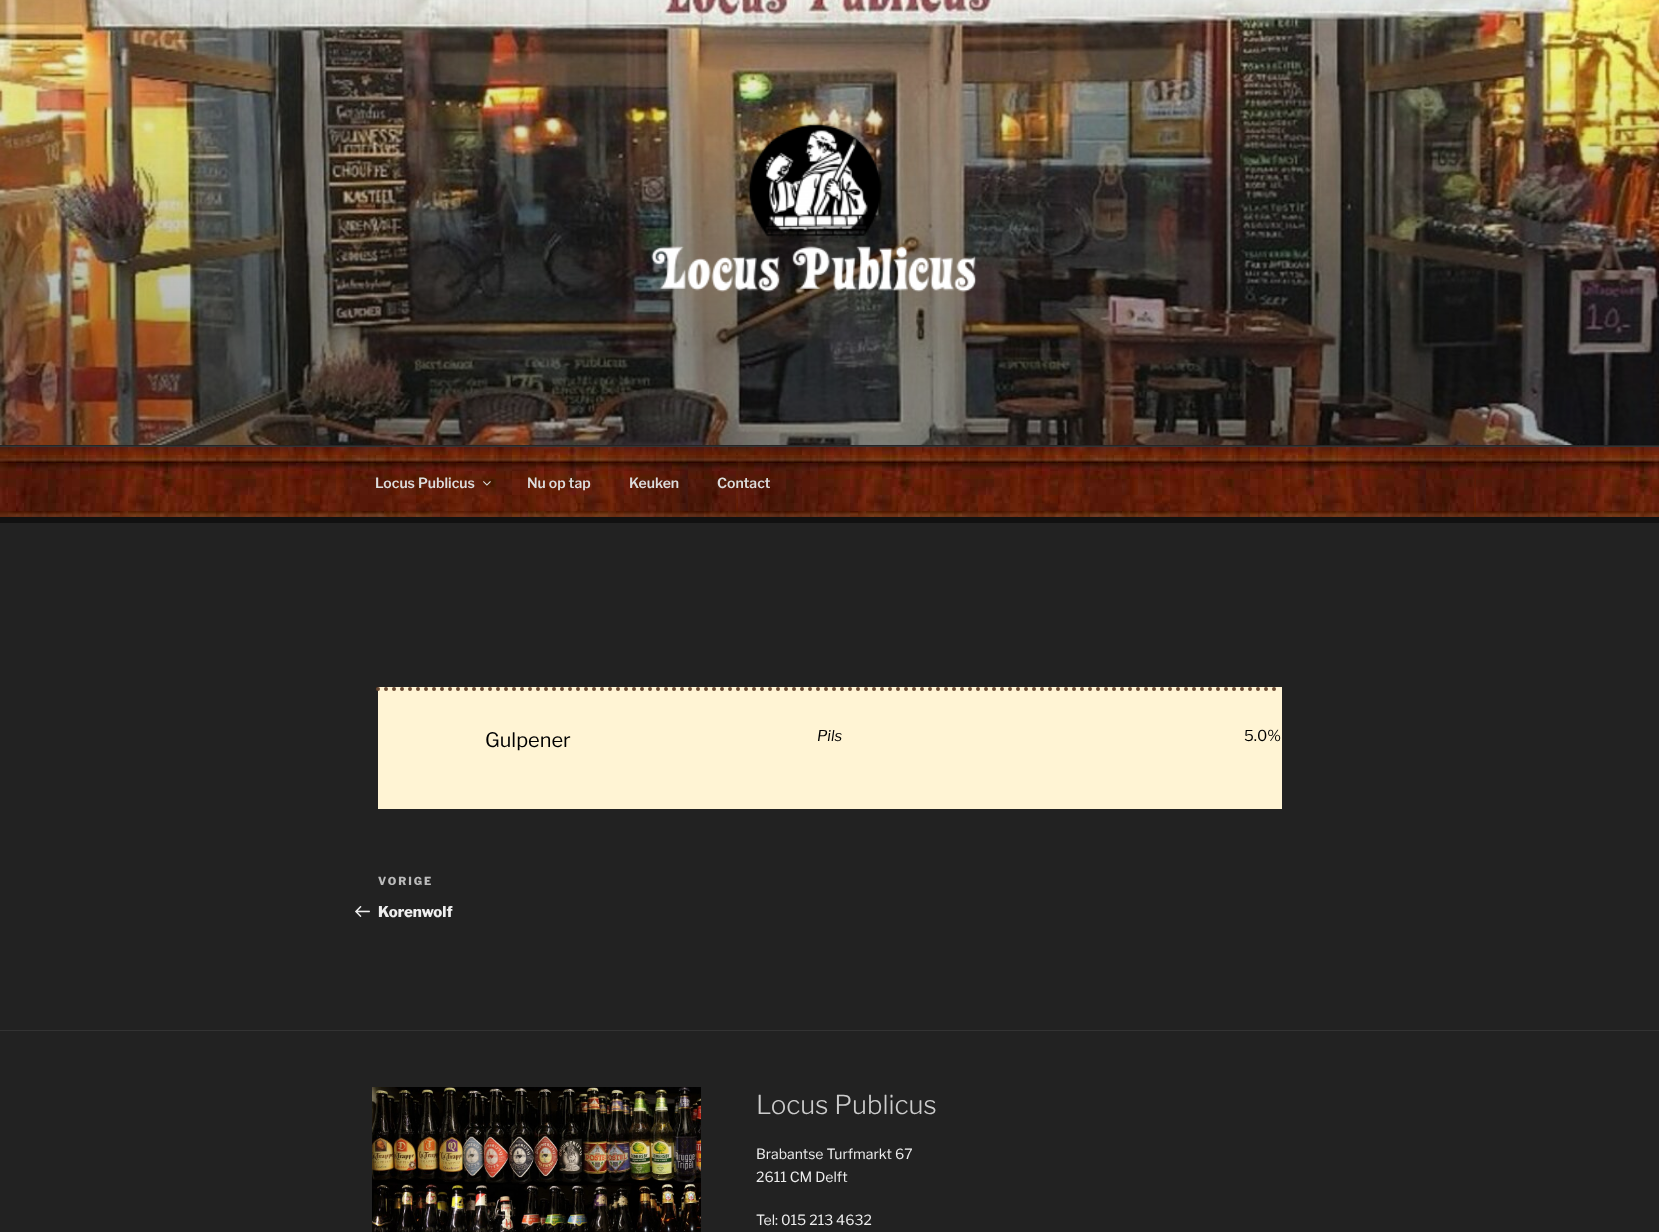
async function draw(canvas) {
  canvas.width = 1659
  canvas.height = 1232
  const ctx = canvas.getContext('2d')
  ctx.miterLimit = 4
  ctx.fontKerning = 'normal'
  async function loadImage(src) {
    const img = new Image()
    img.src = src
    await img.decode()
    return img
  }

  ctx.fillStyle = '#262626'
  ctx.fillRect(0, 0, 1659, 1232)
  ctx.drawImage(await loadImage('image0.png'), 0, 0, 1659, 445)
  ctx.drawImage(await loadImage('image1.png'), 651, 123, 326, 169)
  ctx.drawImage(await loadImage('image2.png'), 0, 447, 1659, 70)
  ctx.fillStyle = '#333'
  ctx.fillRect(0, 446, 1659, 1)
  ctx.fillStyle = '#111'
  ctx.fillRect(0, 517, 1659, 6)
  ctx.font = '600 14px Libre Franklin'
  ctx.fillStyle = '#ddd'
  ctx.fillText('Locus Publicus', 375, 488)
  ctx.drawImage(await loadImage('image3.png'), 483, 481, 8, 5)
  ctx.fillText('Nu op tap', 527, 488)
  ctx.fillText('Keuken', 629, 488)
  ctx.fillText('Contact', 717, 488)
  ctx.fillStyle = '#222'
  ctx.fillRect(0, 523, 1659, 709)
  ctx.fillStyle = '#fff4d4'
  ctx.fillRect(378, 687, 904, 122)
  ctx.beginPath()
  ctx.moveTo(378, 689)
  ctx.lineTo(1282, 689)
  ctx.strokeStyle = '#6b4a33'
  ctx.lineWidth = 4
  ctx.lineCap = 'round'
  ctx.setLineDash([0, 8])
  ctx.stroke()
  ctx.font = '20px Libre Franklin'
  ctx.fillStyle = '#000'
  ctx.fillText('Gulpener', 485, 747)
  ctx.font = 'italic 15px Libre Franklin'
  ctx.fillText('Pils', 817, 741)
  ctx.font = '15px Libre Franklin'
  ctx.fillText('5.0%', 1244, 741)
  ctx.letterSpacing = '2px'
  ctx.font = '800 11px Libre Franklin'
  ctx.fillStyle = '#bbb'
  ctx.fillText('VORIGE', 378, 885)
  ctx.drawImage(await loadImage('image4.png'), 355, 906, 15, 11)
  ctx.letterSpacing = '0px'
  ctx.font = '800 15px Libre Franklin'
  ctx.fillStyle = '#eee'
  ctx.fillText('Korenwolf', 378, 917)
  ctx.fillStyle = '#333'
  ctx.fillRect(0, 1030, 1659, 1)
  ctx.drawImage(await loadImage('image5.png'), 372, 1087, 329, 145)
  ctx.font = '300 26px Libre Franklin'
  ctx.fillStyle = '#ccc'
  ctx.fillText('Locus Publicus', 756, 1114)
  ctx.font = '14px Libre Franklin'
  ctx.fillStyle = '#eee'
  ctx.fillText('Brabantse Turfmarkt 67', 756, 1159)
  ctx.fillText('2611 CM Delft', 756, 1182)
  ctx.fillText('Tel: 015 213 4632', 756, 1225)
}

draw(document.querySelector('canvas'))
